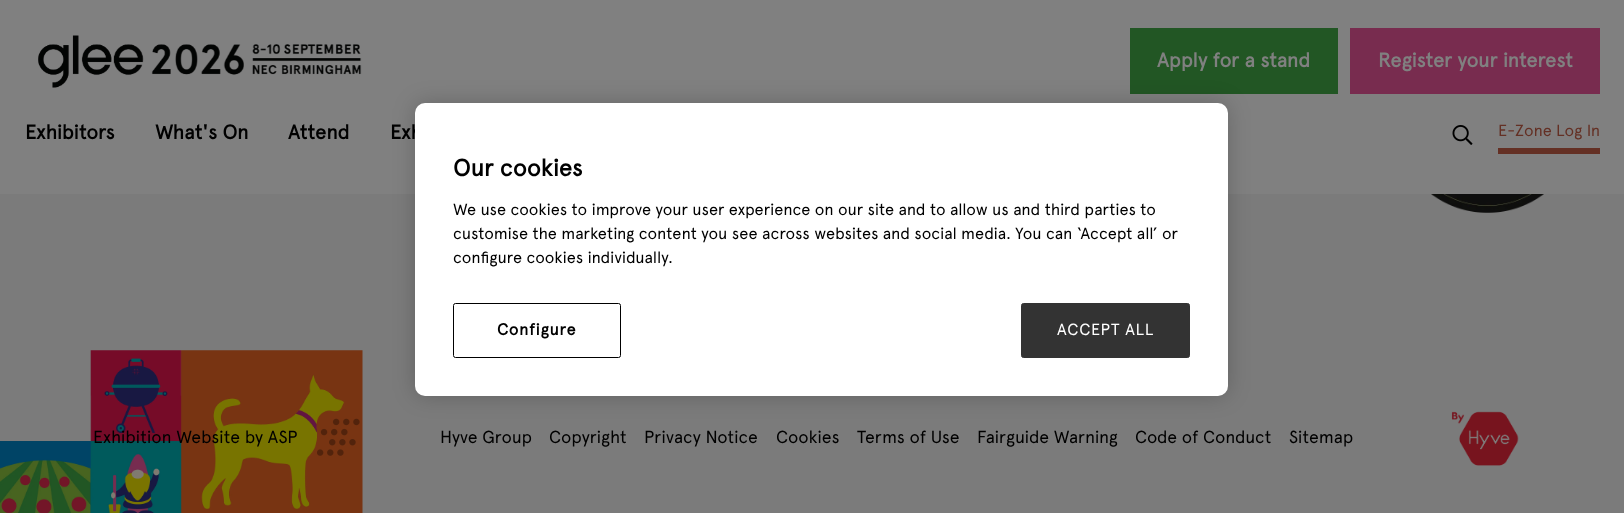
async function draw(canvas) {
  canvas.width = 1624
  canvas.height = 513
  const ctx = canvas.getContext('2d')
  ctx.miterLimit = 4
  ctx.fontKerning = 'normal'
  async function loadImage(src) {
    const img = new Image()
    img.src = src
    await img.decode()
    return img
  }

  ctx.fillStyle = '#7b7b7b'
  ctx.fillRect(0, 0, 1624, 513)
  ctx.fillStyle = '#808080'
  ctx.fillRect(0, 0, 1624, 194)
  ctx.drawImage(await loadImage('image0.png'), 38, 35, 324, 53)
  ctx.fillStyle = '#225624'
  ctx.fillRect(1130, 28, 208, 66)
  ctx.font = 'bold 20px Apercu'
  ctx.fillStyle = '#808080'
  ctx.fillText('Apply for a stand', 1157, 67)
  ctx.fillStyle = '#782c4f'
  ctx.fillRect(1350, 28, 250, 66)
  ctx.fillStyle = '#808080'
  ctx.fillText('Register your interest', 1378, 67)
  ctx.fillStyle = '#000'
  ctx.fillText('Exhibitors', 25, 139)
  ctx.fillText('What\'s On', 155, 139)
  ctx.fillText('Attend', 288, 139)
  ctx.fillText('Exh', 390, 139)
  ctx.drawImage(await loadImage('image1.png'), 1452, 125, 21, 20)
  ctx.font = '16.25px Apercu'
  ctx.fillStyle = '#643024'
  ctx.fillText('E-Zone Log In', 1498, 136)
  ctx.fillRect(1498, 148, 102, 6)
  ctx.drawImage(await loadImage('image2.png'), 1431, 194, 113, 19)
  ctx.drawImage(await loadImage('image3.png'), 0, 350, 363, 163)
  ctx.font = '17.5px Apercu'
  ctx.fillStyle = '#000'
  ctx.fillText('Exhibition Website by ASP', 93, 443)
  ctx.drawImage(await loadImage('image4.png'), 317, 418, 43, 38)
  ctx.fillText('Hyve Group', 440, 443)
  ctx.fillText('Copyright', 549, 443)
  ctx.fillText('Privacy Notice', 644, 443)
  ctx.fillText('Cookies', 776, 443)
  ctx.fillText('Terms of Use', 857, 443)
  ctx.fillText('Fairguide Warning', 977, 443)
  ctx.fillText('Code of Conduct', 1135, 443)
  ctx.fillText('Sitemap', 1289, 443)
  ctx.drawImage(await loadImage('image5.png'), 1451, 411, 68, 55)
  ctx.fillStyle = '#00000033'
  ctx.filter = 'blur(11px)'
  ctx.beginPath()
  ctx.roundRect(415, 103, 813, 293, 10)
  ctx.fill()
  ctx.filter = 'none'
  ctx.fillStyle = '#fff'
  ctx.beginPath()
  ctx.roundRect(415, 103, 813, 293, 10)
  ctx.fill()
  ctx.font = 'bold 23.75px Apercu'
  ctx.fillStyle = '#000'
  ctx.fillText('Our cookies', 453, 176)
  ctx.font = '16.25px Apercu'
  ctx.fillText('We use cookies to improve your user experience on our site and to allow us and third parties to', 453, 215)
  ctx.fillText('customise the marketing content you see across websites and social media. You can ‘Accept all’ or', 453, 239)
  ctx.fillText('configure cookies individually.', 453, 263)
  ctx.beginPath()
  ctx.roundRect(453.5, 303.5, 167, 54, 2)
  ctx.strokeStyle = '#000'
  ctx.stroke()
  ctx.letterSpacing = '0.75px'
  ctx.font = 'bold 16.25px Apercu'
  ctx.fillText('Configure', 497, 335)
  ctx.fillStyle = '#333'
  ctx.beginPath()
  ctx.roundRect(1021.5, 303.5, 168, 54, 2)
  ctx.fill()
  ctx.strokeStyle = '#333'
  ctx.stroke()
  ctx.font = '16.25px Apercu'
  ctx.fillStyle = '#fff'
  ctx.fillText('ACCEPT ALL', 1057, 335)
}

draw(document.querySelector('canvas'))
